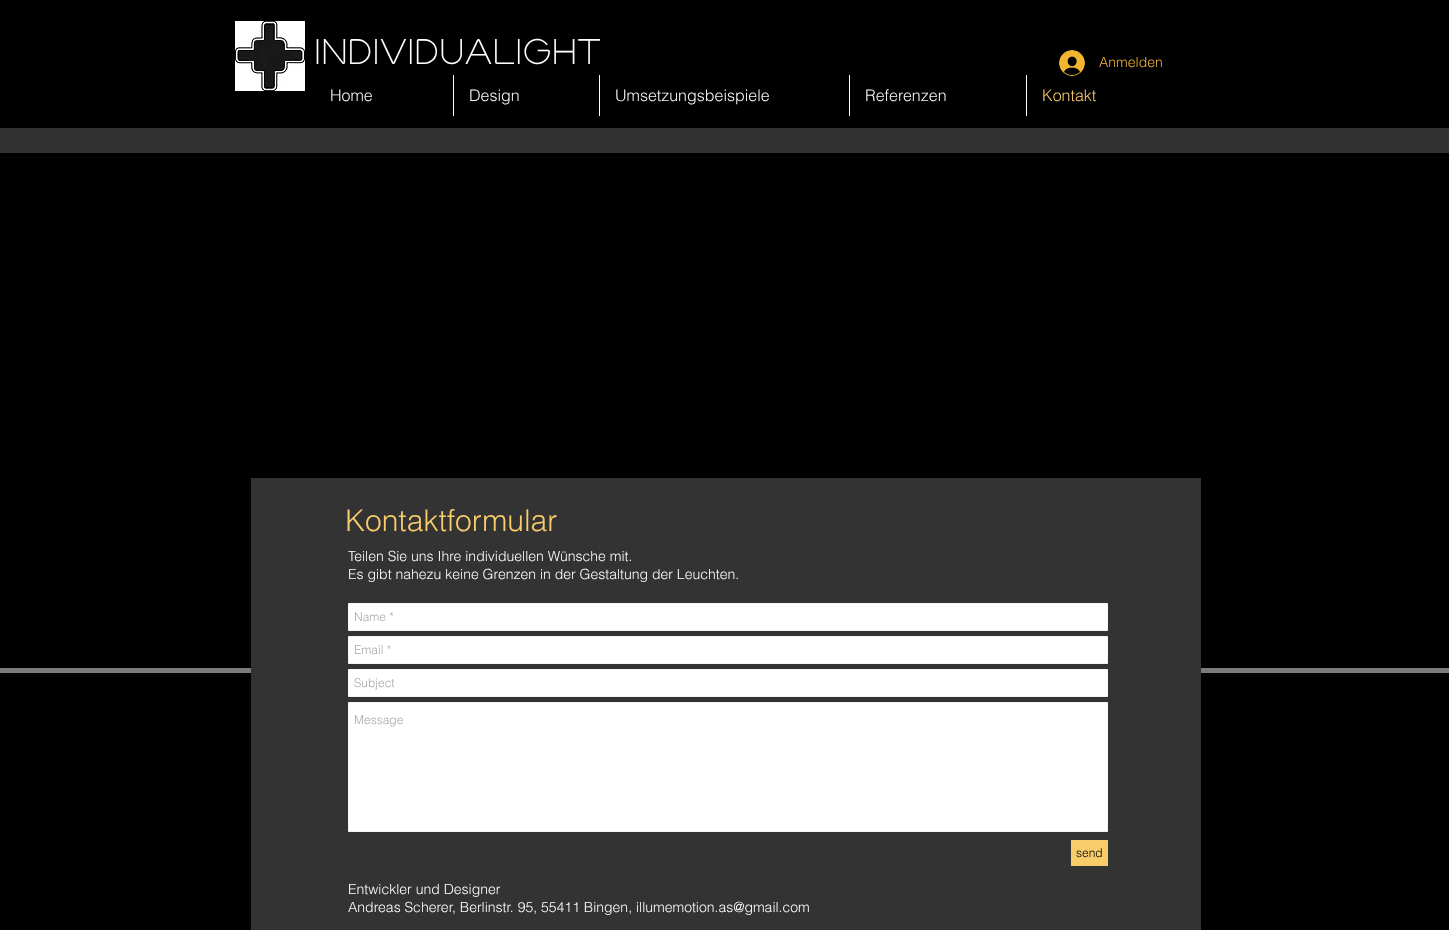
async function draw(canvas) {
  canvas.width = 1449
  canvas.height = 930
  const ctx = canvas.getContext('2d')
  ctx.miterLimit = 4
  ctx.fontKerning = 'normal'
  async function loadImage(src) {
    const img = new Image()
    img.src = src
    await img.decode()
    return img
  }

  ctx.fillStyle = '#000'
  ctx.fillRect(0, 0, 1449, 930)
  ctx.drawImage(await loadImage('image0.png'), 235, 21, 70, 70)
  ctx.letterSpacing = '3.4px'
  ctx.font = 'bold 34px "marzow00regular"'
  ctx.fillStyle = '#fff'
  ctx.fillText('Individualight', 315, 64)
  ctx.drawImage(await loadImage('image1.png'), 1059, 50, 26, 26)
  ctx.letterSpacing = '0px'
  ctx.font = '300 14px helvetica'
  ctx.fillStyle = '#f3b530'
  ctx.fillText('Anmelden', 1099, 67)
  ctx.font = '300 16px helvetica'
  ctx.fillStyle = '#f9f4f4'
  ctx.fillText('Home', 330, 101)
  ctx.fillStyle = '#fff'
  ctx.fillRect(453, 75, 1, 41)
  ctx.fillStyle = '#f9f4f4'
  ctx.fillText('Design', 469, 101)
  ctx.fillStyle = '#fff'
  ctx.fillRect(599, 75, 1, 41)
  ctx.fillStyle = '#f9f4f4'
  ctx.fillText('Umsetzungsbeispiele', 615, 101)
  ctx.fillStyle = '#fff'
  ctx.fillRect(849, 75, 1, 41)
  ctx.fillStyle = '#f9f4f4'
  ctx.fillText('Referenzen', 865, 101)
  ctx.fillStyle = '#fff'
  ctx.fillRect(1026, 75, 1, 41)
  ctx.fillStyle = '#f9cc6a'
  ctx.fillText('Kontakt', 1042, 101)
  ctx.fillStyle = '#333232'
  ctx.fillRect(0, 128, 1449, 25)
  ctx.fillStyle = '#7d7a7a'
  ctx.fillRect(0, 668, 1449, 5)
  ctx.fillStyle = '#343333'
  ctx.fillRect(251, 478, 950, 452)
  ctx.font = '300 30px helvetica'
  ctx.fillStyle = '#f9cc6a'
  ctx.fillText('Kontaktformular', 345, 531)
  ctx.font = '300 14px helvetica'
  ctx.fillStyle = '#fff'
  ctx.fillText('Teilen Sie uns Ihre individuellen Wünsche mit.', 348, 561)
  ctx.fillText('Es gibt nahezu keine Grenzen in der Gestaltung der Leuchten.', 348, 579)
  ctx.beginPath()
  ctx.rect(348.5, 603.5, 759, 27)
  ctx.fill()
  ctx.strokeStyle = '#f9f4f4'
  ctx.stroke()
  ctx.font = '300 12px helvetica'
  ctx.fillStyle = '#a9a9a9'
  ctx.fillText('Name *', 354, 621)
  ctx.fillStyle = '#fff'
  ctx.beginPath()
  ctx.rect(348.5, 636.5, 759, 27)
  ctx.fill()
  ctx.stroke()
  ctx.fillStyle = '#a9a9a9'
  ctx.fillText('Email *', 354, 654)
  ctx.fillStyle = '#fff'
  ctx.beginPath()
  ctx.rect(348.5, 669.5, 759, 27)
  ctx.fill()
  ctx.stroke()
  ctx.fillStyle = '#a9a9a9'
  ctx.fillText('Subject', 354, 687)
  ctx.fillStyle = '#fff'
  ctx.beginPath()
  ctx.rect(348.5, 702.5, 759, 129)
  ctx.fill()
  ctx.stroke()
  ctx.fillStyle = '#a9a9a9'
  ctx.fillText('Message', 354, 724)
  ctx.fillStyle = '#f9cc6a'
  ctx.fillRect(1071, 840, 37, 26)
  ctx.fillStyle = '#000'
  ctx.fillText('send', 1076, 857)
  ctx.font = '300 14px helvetica'
  ctx.fillStyle = '#fff'
  ctx.fillText('Entwickler und Designer', 348, 894)
  ctx.fillText('Andreas Scherer, Berlinstr. 95, 55411 Bingen, illumemotion.as@gmail.com', 348, 912)
}

draw(document.querySelector('canvas'))
